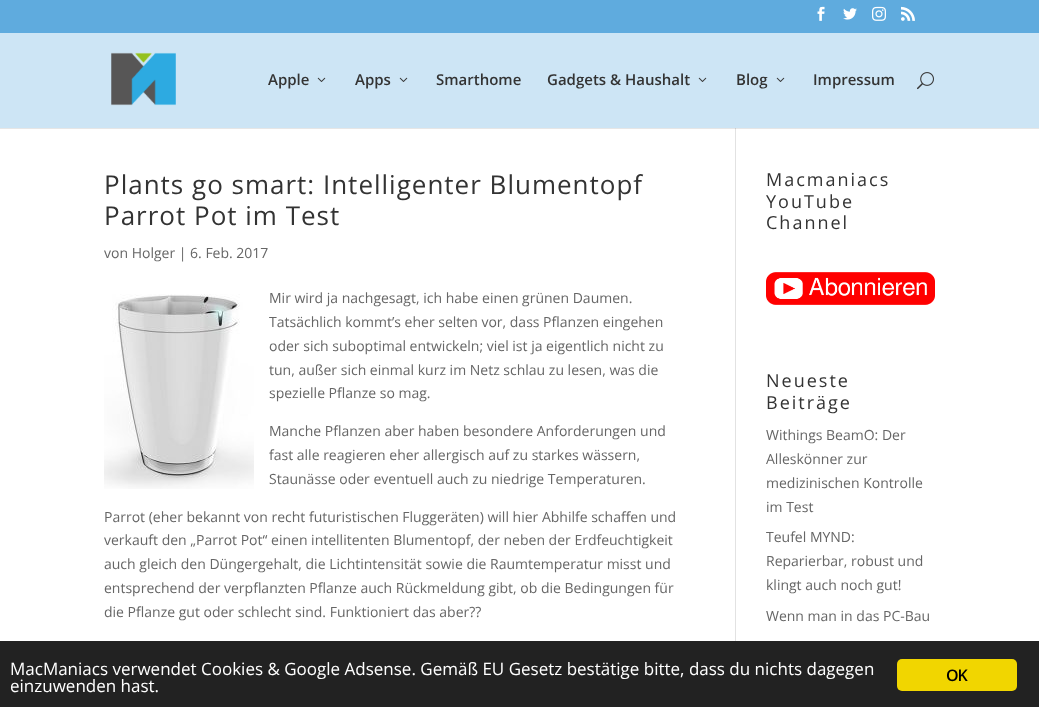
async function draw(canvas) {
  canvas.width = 1039
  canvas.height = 707
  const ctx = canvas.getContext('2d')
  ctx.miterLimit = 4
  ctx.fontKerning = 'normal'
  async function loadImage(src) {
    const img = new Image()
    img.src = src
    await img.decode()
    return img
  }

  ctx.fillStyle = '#fff'
  ctx.fillRect(0, 0, 1039, 707)
  ctx.fillStyle = '#e6e6e6'
  ctx.fillRect(0, 128, 1039, 1)
  ctx.fillStyle = '#5fabde'
  ctx.fillRect(0, 0, 1039, 33)
  ctx.drawImage(await loadImage('image0.png'), 817, 6, 8, 15)
  ctx.drawImage(await loadImage('image1.png'), 843, 8, 14, 12)
  ctx.drawImage(await loadImage('image2.png'), 872, 6, 14, 15)
  ctx.drawImage(await loadImage('image3.png'), 901, 6, 14, 15)
  ctx.fillStyle = '#cde5f5'
  ctx.fillRect(0, 33, 1039, 95)
  ctx.drawImage(await loadImage('image4.png'), 111, 52, 65, 54)
  ctx.font = '600 15px Open Sans'
  ctx.fillStyle = '#333'
  ctx.fillText('Apple', 268, 85)
  ctx.drawImage(await loadImage('image5.png'), 317, 77, 9, 5)
  ctx.fillText('Apps', 355, 85)
  ctx.drawImage(await loadImage('image5.png'), 399, 77, 9, 5)
  ctx.fillText('Smarthome', 436, 85)
  ctx.fillText('Gadgets & Haushalt', 547, 85)
  ctx.drawImage(await loadImage('image5.png'), 698, 77, 9, 5)
  ctx.fillText('Blog', 736, 85)
  ctx.drawImage(await loadImage('image5.png'), 776, 77, 9, 5)
  ctx.fillText('Impressum', 813, 85)
  ctx.drawImage(await loadImage('image6.png'), 917, 72, 17, 18)
  ctx.fillStyle = '#e2e2e2'
  ctx.fillRect(735, 129, 1, 512)
  ctx.fillStyle = '#cbcbcb'
  ctx.fillRect(735, 128, 1, 1)
  ctx.letterSpacing = '1px'
  ctx.font = '26px Open Sans'
  ctx.fillStyle = '#333'
  ctx.fillText('Plants go smart: Intelligenter Blumentopf', 104, 194)
  ctx.fillText('Parrot Pot im Test', 104, 225)
  ctx.letterSpacing = '0px'
  ctx.font = '14px Open Sans'
  ctx.fillStyle = '#666'
  ctx.fillText('von Holger | 6. Feb. 2017', 104, 258)
  ctx.drawImage(await loadImage('image7.png'), 104, 294, 150, 195)
  ctx.fillText('Mir wird ja nachgesagt, ich habe einen grünen Daumen.', 269, 303)
  ctx.fillText('Tatsächlich kommt’s eher selten vor, dass Pflanzen eingehen', 269, 327)
  ctx.fillText('oder sich suboptimal entwickeln; viel ist ja eigentlich nicht zu', 269, 351)
  ctx.fillText('tun, außer sich einmal kurz im Netz schlau zu lesen, was die', 269, 375)
  ctx.fillText('spezielle Pflanze so mag.', 269, 398)
  ctx.fillText('Manche Pflanzen aber haben besondere Anforderungen und', 269, 436)
  ctx.fillText('fast alle reagieren eher allergisch auf zu starkes wässern,', 269, 460)
  ctx.fillText('Staunässe oder eventuell auch zu niedrige Temperaturen.', 269, 484)
  ctx.fillText('Parrot (eher bekannt von recht futuristischen Fluggeräten) will hier Abhilfe schaffen und', 104, 522)
  ctx.fillText('verkauft den „Parrot Pot“ einen intellitenten Blumentopf, der neben der Erdfeuchtigkeit', 104, 545)
  ctx.fillText('auch gleich den Düngergehalt, die Lichtintensität sowie die Raumtemperatur misst und', 104, 569)
  ctx.fillText('entsprechend der verpflanzten Pflanze auch Rückmeldung gibt, ob die Bedingungen für', 104, 593)
  ctx.fillText('die Pflanze gut oder schlecht sind. Funktioniert das aber??', 104, 617)
  ctx.letterSpacing = '2px'
  ctx.font = '18px Open Sans'
  ctx.fillStyle = '#333'
  ctx.fillText('Macmaniacs', 766, 186)
  ctx.fillText('YouTube', 766, 208)
  ctx.fillText('Channel', 766, 229)
  ctx.drawImage(await loadImage('image8.png'), 766, 272, 169, 33)
  ctx.fillText('Neueste', 766, 387)
  ctx.fillText('Beiträge', 766, 409)
  ctx.letterSpacing = '0px'
  ctx.font = '14px Open Sans'
  ctx.fillStyle = '#666'
  ctx.fillText('Withings BeamO: Der', 766, 440)
  ctx.fillText('Alleskönner zur', 766, 464)
  ctx.fillText('medizinischen Kontrolle', 766, 488)
  ctx.fillText('im Test', 766, 512)
  ctx.fillText('Teufel MYND:', 766, 542)
  ctx.fillText('Reparierbar, robust und', 766, 566)
  ctx.fillText('klingt auch noch gut!', 766, 590)
  ctx.fillText('Wenn man in das PC-Bau', 766, 621)
  ctx.fillStyle = '#222'
  ctx.fillRect(0, 641, 1039, 66)
  ctx.font = '17px Open Sans'
  ctx.fillStyle = '#fff'
  ctx.fillText('MacManiacs verwendet Cookies & Google Adsense. Gemäß EU Gesetz bestätige bitte, dass du nichts dagegen', 10, 675)
  ctx.fillText('einzuwenden hast.', 10, 692)
  ctx.fillStyle = '#f1d600'
  ctx.beginPath()
  ctx.roundRect(897, 659, 120, 32, 5)
  ctx.fill()
  ctx.letterSpacing = '-1px'
  ctx.font = '600 16px Open Sans'
  ctx.fillStyle = '#000'
  ctx.fillText('OK', 946, 681)
}

draw(document.querySelector('canvas'))
